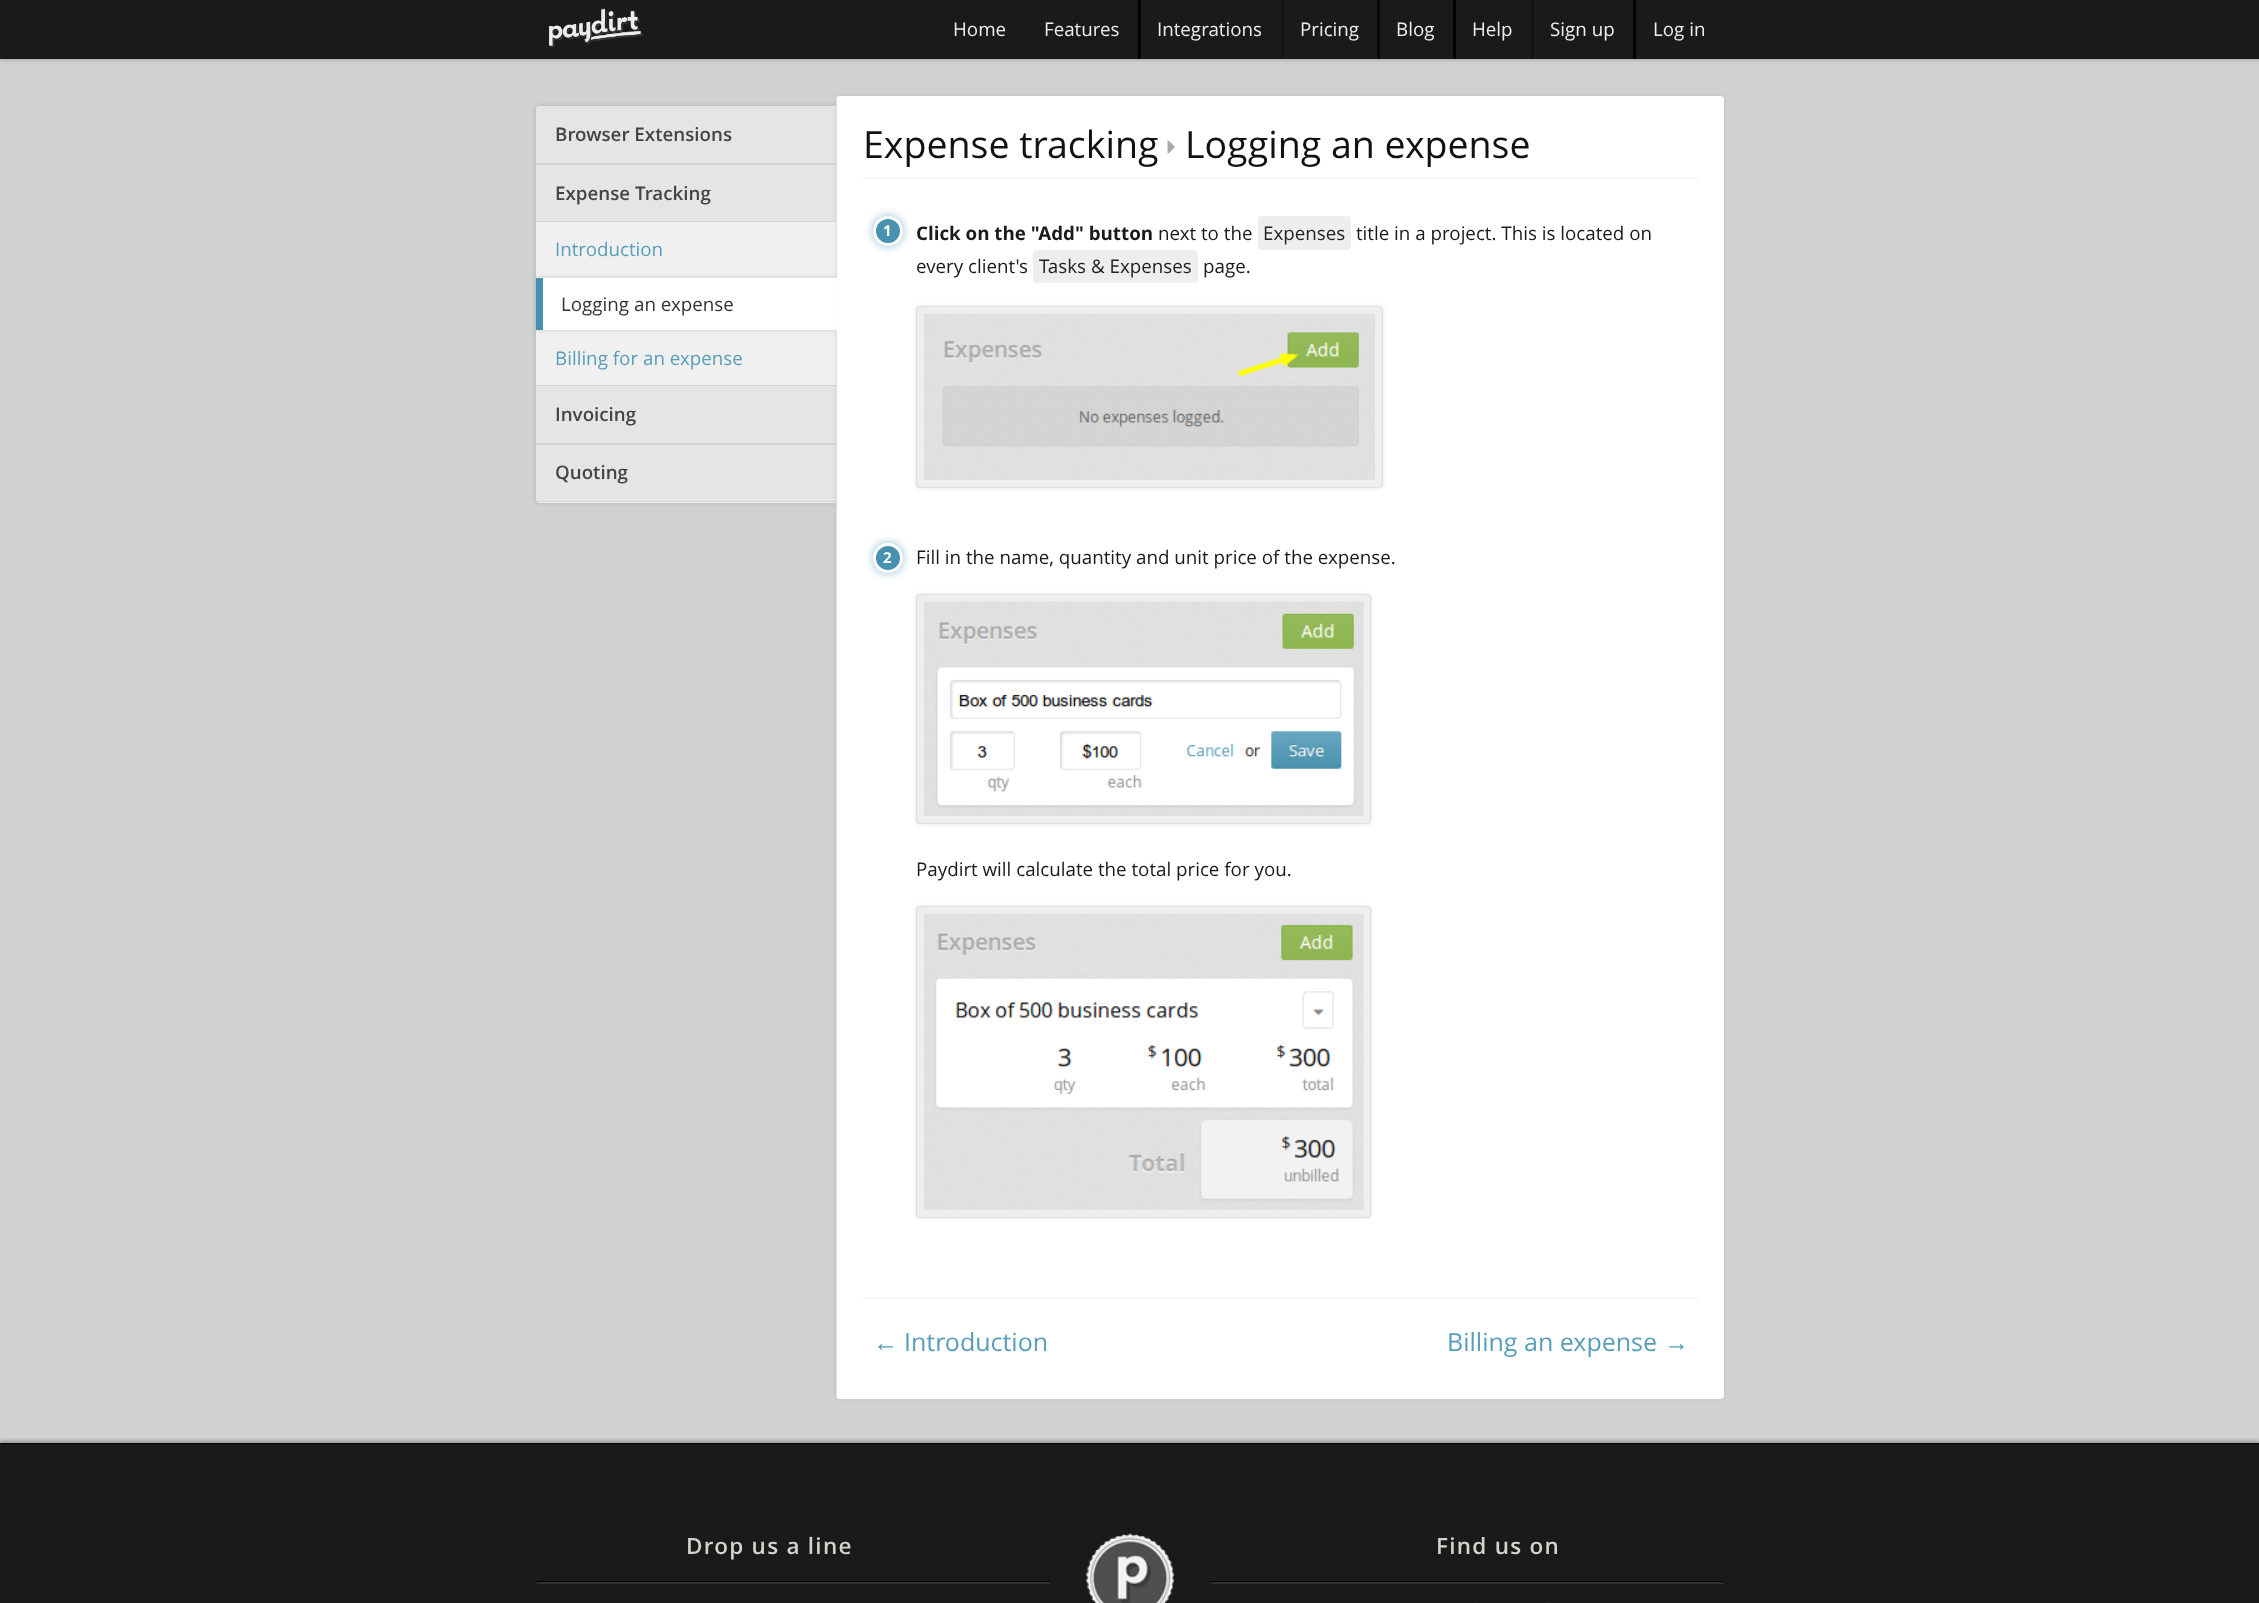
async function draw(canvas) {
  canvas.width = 2259
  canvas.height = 1603
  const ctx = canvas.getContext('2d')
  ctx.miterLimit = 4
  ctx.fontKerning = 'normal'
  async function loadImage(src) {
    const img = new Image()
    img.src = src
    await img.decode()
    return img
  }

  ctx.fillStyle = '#1a1a1a'
  ctx.fillRect(0, 0, 2259, 1603)
  ctx.fillStyle = '#d1d1d1'
  ctx.fillRect(0, 59, 2259, 1384)
  ctx.fillStyle = '#00000033'
  ctx.filter = 'blur(2px)'
  ctx.beginPath()
  ctx.rect(0, 1, 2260, 59)
  ctx.fill()
  ctx.filter = 'none'
  ctx.fillStyle = '#1a1a1a'
  ctx.fillRect(0, 1, 2259, 58)
  ctx.drawImage(await loadImage('image0.png'), 549, 8, 94, 40)
  ctx.font = '18.75px Open Sans'
  ctx.fillStyle = '#eee'
  ctx.fillText('Home', 953, 36)
  ctx.fillText('Features', 1044, 36)
  ctx.fillStyle = '#020202'
  ctx.fillRect(1138, 0, 3, 59)
  ctx.fillStyle = '#eee'
  ctx.fillText('Integrations', 1157, 36)
  ctx.fillStyle = '#131313'
  ctx.fillRect(1281, 0, 3, 59)
  ctx.fillStyle = '#eee'
  ctx.fillText('Pricing', 1300, 36)
  ctx.fillStyle = '#090909'
  ctx.fillRect(1377, 0, 3, 59)
  ctx.fillStyle = '#eee'
  ctx.fillText('Blog', 1396, 36)
  ctx.fillStyle = '#020202'
  ctx.fillRect(1453, 0, 3, 59)
  ctx.fillStyle = '#eee'
  ctx.fillText('Help', 1472, 36)
  ctx.fillStyle = '#131313'
  ctx.fillRect(1531, 0, 3, 59)
  ctx.fillStyle = '#eee'
  ctx.fillText('Sign up', 1550, 36)
  ctx.fillStyle = '#020202'
  ctx.fillRect(1633, 0, 3, 59)
  ctx.fillStyle = '#eee'
  ctx.fillText('Log in', 1653, 36)
  ctx.fillStyle = '#00000026'
  ctx.filter = 'blur(2.5px)'
  ctx.beginPath()
  ctx.roundRect(536, 106, 300, 397, 4)
  ctx.fill()
  ctx.filter = 'none'
  ctx.fillStyle = '#f0f0f0'
  ctx.beginPath()
  ctx.roundRect(536, 106, 300, 397, [4, 0, 0, 4])
  ctx.fill()
  ctx.fillStyle = '#e5e5e5'
  ctx.beginPath()
  ctx.roundRect(536, 106, 300, 58, [4, 0, 0, 0])
  ctx.fill()
  ctx.fillStyle = '#d4d4d4'
  ctx.fillRect(536, 163, 300, 2)
  ctx.font = '600 18.75px Open Sans'
  ctx.fillStyle = '#444'
  ctx.fillText('Browser Extensions', 555, 141)
  ctx.fillStyle = '#e5e5e5'
  ctx.fillRect(536, 165, 300, 56)
  ctx.fillStyle = '#d4d4d4'
  ctx.fillRect(536, 221, 300, 1)
  ctx.fillStyle = '#444'
  ctx.fillText('Expense Tracking', 555, 200)
  ctx.fillStyle = '#e4e4e4'
  ctx.fillRect(536, 276, 300, 1)
  ctx.font = '18.75px Open Sans'
  ctx.fillStyle = '#579db9'
  ctx.fillText('Introduction', 555, 256)
  ctx.fillStyle = '#e5e5e5'
  ctx.fillRect(536, 386, 300, 57)
  ctx.fillStyle = '#d4d4d4'
  ctx.fillRect(536, 385, 300, 1)
  ctx.fillRect(536, 443, 300, 2)
  ctx.fillStyle = '#e5e5e5'
  ctx.fillRect(536, 445, 300, 56)
  ctx.fillStyle = '#d4d4d4'
  ctx.fillRect(536, 501, 300, 1)
  ctx.fillStyle = '#00000014'
  ctx.filter = 'blur(2px)'
  ctx.beginPath()
  ctx.roundRect(836, 96, 888, 1303, 4)
  ctx.fill()
  ctx.filter = 'none'
  ctx.fillStyle = '#fff'
  ctx.beginPath()
  ctx.roundRect(836, 96, 888, 1303, 4)
  ctx.fill()
  ctx.fillStyle = '#e0e0e0'
  ctx.fillRect(836, 99, 1, 1299)
  ctx.fillStyle = '#00000014'
  ctx.filter = 'blur(2.5px)'
  ctx.beginPath()
  ctx.rect(536, 278, 300, 53)
  ctx.fill()
  ctx.filter = 'none'
  ctx.fillStyle = '#fff'
  ctx.fillRect(836, 278, 3, 53)
  ctx.fillRect(543, 278, 293, 52)
  ctx.fillStyle = '#dedede'
  ctx.fillRect(536, 330, 300, 1)
  ctx.fillStyle = '#4891af'
  ctx.fillRect(536, 278, 7, 52)
  ctx.fillStyle = '#333'
  ctx.fillText('Logging an expense', 561, 311)
  ctx.fillStyle = '#579db9'
  ctx.fillText('Billing for an expense', 555, 365)
  ctx.font = '600 18.75px Open Sans'
  ctx.fillStyle = '#444'
  ctx.fillText('Invoicing', 555, 421)
  ctx.fillText('Quoting', 555, 479)
  ctx.fillStyle = '#eee'
  ctx.fillRect(863, 178, 836, 1)
  ctx.font = '37.5px Open Sans'
  ctx.fillStyle = '#111'
  ctx.fillText('Expense tracking', 863, 158)
  ctx.drawImage(await loadImage('image1.png'), 1167, 140, 8, 14)
  ctx.fillText('Logging an expense', 1185, 158)
  ctx.fillStyle = '#4891af99'
  ctx.filter = 'blur(5px)'
  ctx.beginPath()
  ctx.roundRect(873, 216, 30, 30, 15)
  ctx.fill()
  ctx.filter = 'none'
  ctx.fillStyle = '#4891af'
  ctx.beginPath()
  ctx.arc(888, 231, 13.5, 0, 2 * Math.PI)
  ctx.fill()
  ctx.strokeStyle = '#fff'
  ctx.lineWidth = 3
  ctx.stroke()
  ctx.font = 'bold 15px Open Sans'
  ctx.fillStyle = '#fff'
  ctx.fillText('1', 883, 236)
  ctx.font = 'bold 18.75px Open Sans'
  ctx.fillStyle = '#1a1a1a'
  ctx.fillText('Click on the "Add" button', 916, 240)
  ctx.font = '18.75px Open Sans'
  ctx.fillText('next to the', 1158, 240)
  ctx.fillStyle = '#eee'
  ctx.beginPath()
  ctx.roundRect(1258, 216, 93, 34, 4)
  ctx.fill()
  ctx.fillStyle = '#222'
  ctx.fillText('Expenses', 1263, 240)
  ctx.fillStyle = '#1a1a1a'
  ctx.fillText('title in a project. This is located on', 1356, 240)
  ctx.fillText('every client\'s', 916, 273)
  ctx.fillStyle = '#eee'
  ctx.beginPath()
  ctx.roundRect(1033, 250, 165, 33, 4)
  ctx.fill()
  ctx.fillStyle = '#222'
  ctx.fillText('Tasks & Expenses', 1039, 273)
  ctx.fillStyle = '#1a1a1a'
  ctx.fillText('page.', 1203, 273)
  ctx.fillStyle = '#0000001a'
  ctx.filter = 'blur(2px)'
  ctx.beginPath()
  ctx.roundRect(916, 306, 467, 182, 4)
  ctx.fill()
  ctx.filter = 'none'
  ctx.fillStyle = '#eee'
  ctx.beginPath()
  ctx.roundRect(916.5, 306.5, 466, 181, 3.5)
  ctx.fill()
  ctx.strokeStyle = '#ddd'
  ctx.lineWidth = 1
  ctx.stroke()
  ctx.drawImage(await loadImage('image2.png'), 924, 314, 451, 166)
  ctx.fillStyle = '#4891af99'
  ctx.filter = 'blur(5px)'
  ctx.beginPath()
  ctx.roundRect(873, 543, 30, 30, 15)
  ctx.fill()
  ctx.filter = 'none'
  ctx.fillStyle = '#4891af'
  ctx.beginPath()
  ctx.arc(888, 558, 13.5, 0, 2 * Math.PI)
  ctx.fill()
  ctx.strokeStyle = '#fff'
  ctx.lineWidth = 3
  ctx.stroke()
  ctx.font = 'bold 15px Open Sans'
  ctx.fillStyle = '#fff'
  ctx.fillText('2', 883, 563)
  ctx.font = '18.75px Open Sans'
  ctx.fillStyle = '#1a1a1a'
  ctx.fillText('Fill in the name, quantity and unit price of the expense.', 916, 564)
  ctx.fillStyle = '#0000001a'
  ctx.filter = 'blur(2px)'
  ctx.beginPath()
  ctx.roundRect(916, 594, 455, 230, 4)
  ctx.fill()
  ctx.filter = 'none'
  ctx.fillStyle = '#eee'
  ctx.beginPath()
  ctx.roundRect(916.5, 594.5, 454, 229, 3.5)
  ctx.fill()
  ctx.strokeStyle = '#ddd'
  ctx.lineWidth = 1
  ctx.stroke()
  ctx.drawImage(await loadImage('image3.png'), 924, 601, 440, 215)
  ctx.fillStyle = '#1a1a1a'
  ctx.fillText('Paydirt will calculate the total price for you.', 916, 876)
  ctx.fillStyle = '#0000001a'
  ctx.filter = 'blur(2px)'
  ctx.beginPath()
  ctx.roundRect(916, 906, 455, 312, 4)
  ctx.fill()
  ctx.filter = 'none'
  ctx.fillStyle = '#eee'
  ctx.beginPath()
  ctx.roundRect(916.5, 906.5, 454, 311, 3.5)
  ctx.fill()
  ctx.stroke()
  ctx.drawImage(await loadImage('image4.png'), 924, 914, 440, 296)
  ctx.fillRect(863, 1298, 836, 1)
  ctx.font = '25px Liberation Sans'
  ctx.fillStyle = '#579db9'
  ctx.fillText('←', 873, 1351)
  ctx.font = '25px Open Sans'
  ctx.fillText('Introduction', 904, 1351)
  ctx.fillText('Billing an expense', 1447, 1351)
  ctx.font = '25px Liberation Sans'
  ctx.fillText('→', 1664, 1351)
  ctx.save()
  ctx.beginPath()
  ctx.rect(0, 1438, 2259, 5)
  ctx.clip()
  ctx.fillStyle = '#0000004d'
  ctx.filter = 'blur(2px)'
  ctx.beginPath()
  ctx.rect(0, 1441, 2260, 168)
  ctx.fill()
  ctx.filter = 'none'
  ctx.restore()
  ctx.fillStyle = '#000'
  ctx.fillRect(0, 1443, 2259, 1)
  ctx.letterSpacing = '1.25px'
  ctx.font = '600 22.5px Open Sans'
  ctx.fillStyle = '#d4d4cd'
  ctx.fillText('Drop us a line', 686, 1554)
  ctx.fillStyle = '#000'
  ctx.beginPath()
  ctx.moveTo(536, 1581)
  ctx.lineTo(1050, 1581)
  ctx.lineTo(1049, 1582)
  ctx.lineTo(538, 1582)
  ctx.closePath()
  ctx.fill()
  ctx.fillStyle = '#313131'
  ctx.beginPath()
  ctx.moveTo(1050, 1584)
  ctx.lineTo(536, 1584)
  ctx.lineTo(538, 1582)
  ctx.lineTo(1049, 1582)
  ctx.closePath()
  ctx.fill()
  ctx.drawImage(await loadImage('image5.png'), 1086, 1533, 88, 70)
  ctx.fillStyle = '#d4d4cd'
  ctx.fillText('Find us on', 1436, 1554)
  ctx.fillStyle = '#000'
  ctx.beginPath()
  ctx.moveTo(1211, 1581)
  ctx.lineTo(1724, 1581)
  ctx.lineTo(1722, 1582)
  ctx.lineTo(1212, 1582)
  ctx.closePath()
  ctx.fill()
  ctx.fillStyle = '#313131'
  ctx.beginPath()
  ctx.moveTo(1724, 1584)
  ctx.lineTo(1211, 1584)
  ctx.lineTo(1212, 1582)
  ctx.lineTo(1722, 1582)
  ctx.closePath()
  ctx.fill()
  ctx.drawImage(await loadImage('image6.png'), 1474, 1602, 5, 1)
  ctx.drawImage(await loadImage('image7.png'), 1544, 1602, 7, 1)
}

draw(document.querySelector('canvas'))
